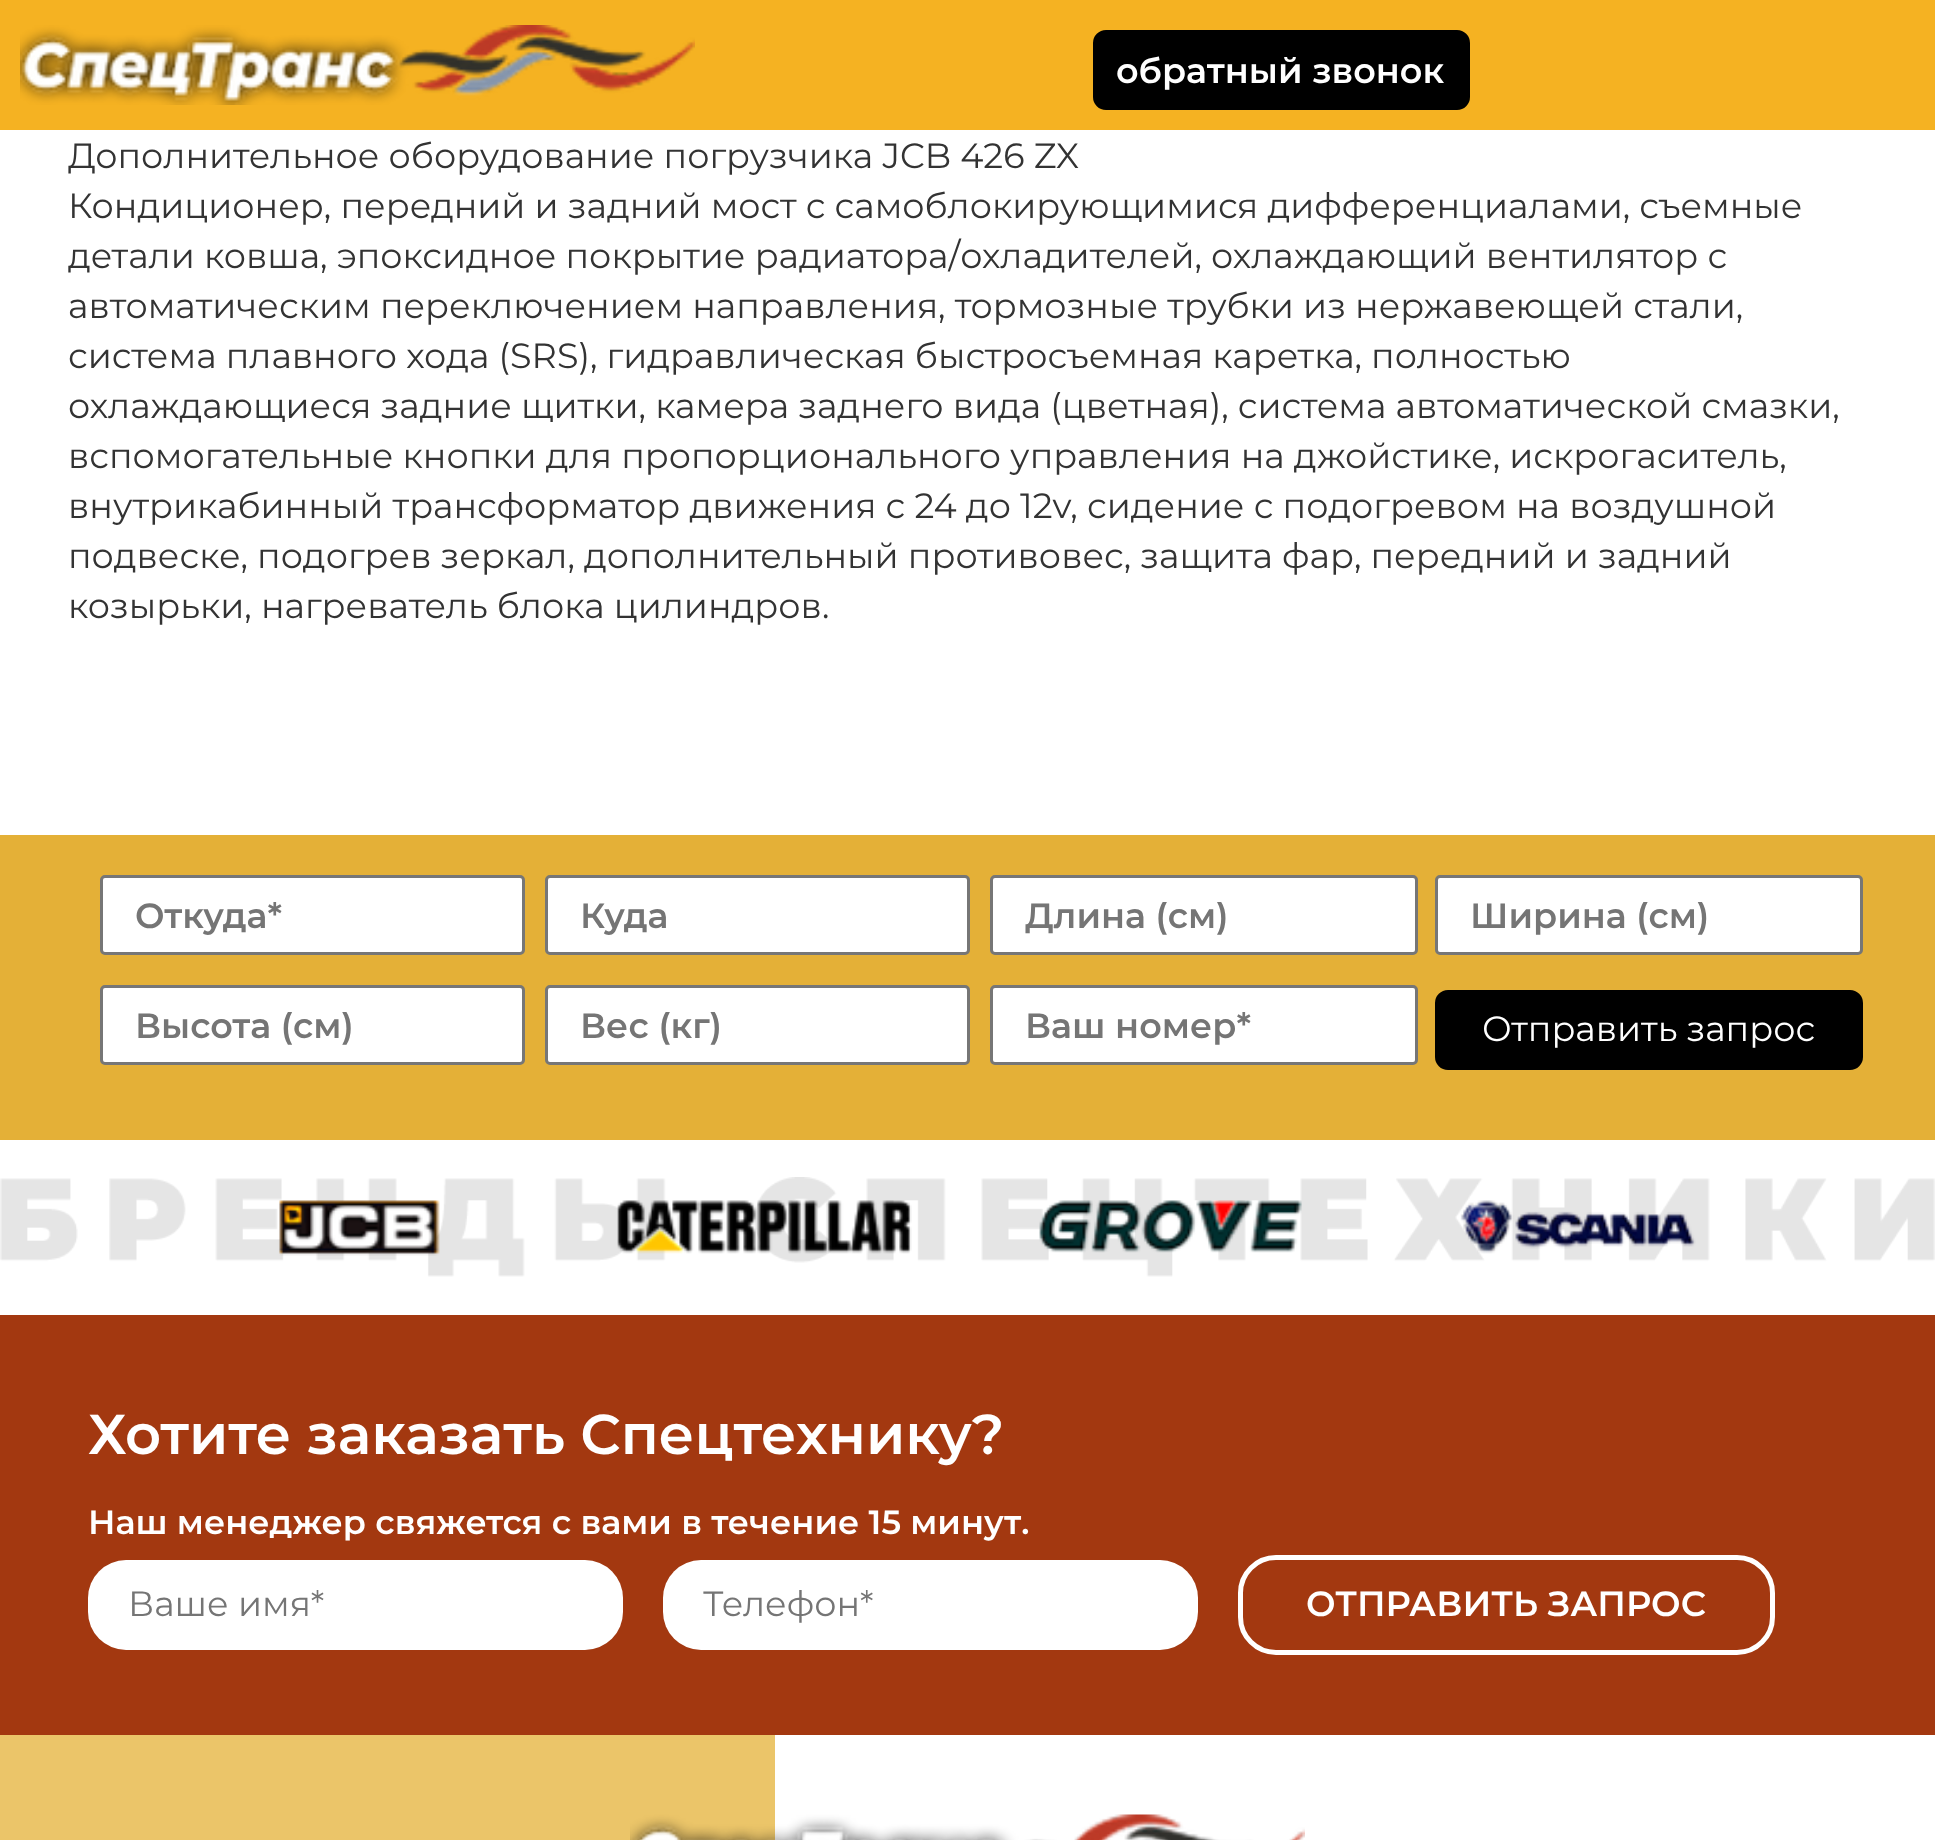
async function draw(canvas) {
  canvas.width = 1935
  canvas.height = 1840
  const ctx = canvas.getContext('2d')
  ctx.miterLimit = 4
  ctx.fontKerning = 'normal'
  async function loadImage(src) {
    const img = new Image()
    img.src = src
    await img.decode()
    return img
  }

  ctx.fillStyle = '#fff'
  ctx.fillRect(0, 0, 1935, 1840)
  ctx.fillStyle = '#f5b222'
  ctx.fillRect(0, 0, 1935, 130)
  ctx.drawImage(await loadImage('image0.png'), 20, 25, 675, 80)
  ctx.fillStyle = '#000'
  ctx.beginPath()
  ctx.roundRect(1095.5, 32.5, 372, 75, 10.5)
  ctx.fill()
  ctx.strokeStyle = '#000'
  ctx.lineWidth = 5
  ctx.stroke()
  ctx.font = '600 35px Montserrat'
  ctx.fillStyle = '#fff'
  ctx.fillText('обратный звонок', 1116, 83)
  ctx.font = '35px Montserrat'
  ctx.fillStyle = '#333'
  ctx.fillText('Дополнительное оборудование погрузчика JCB 426 ZX', 68, 168)
  ctx.fillText('Кондиционер, передний и задний мост с самоблокирующимися дифференциалами, съемные', 68, 218)
  ctx.fillText('детали ковша, эпоксидное покрытие радиатора/охладителей, охлаждающий вентилятор с', 68, 268)
  ctx.fillText('автоматическим переключением направления, тормозные трубки из нержавеющей стали,', 68, 318)
  ctx.fillText('система плавного хода (SRS), гидравлическая быстросъемная каретка, полностью', 68, 368)
  ctx.fillText('охлаждающиеся задние щитки, камера заднего вида (цветная), система автоматической смазки,', 68, 418)
  ctx.fillText('вспомогательные кнопки для пропорционального управления на джойстике, искрогаситель,', 68, 468)
  ctx.fillText('внутрикабинный трансформатор движения с 24 до 12v, сидение с подогревом на воздушной', 68, 518)
  ctx.fillText('подвеске, подогрев зеркал, дополнительный противовес, защита фар, передний и задний', 68, 568)
  ctx.fillText('козырьки, нагреватель блока цилиндров.', 68, 618)
  ctx.fillStyle = '#e4b037'
  ctx.fillRect(0, 835, 1935, 305)
  ctx.fillStyle = '#fff'
  ctx.beginPath()
  ctx.roundRect(101.5, 876.5, 422, 77, 3.5)
  ctx.fill()
  ctx.strokeStyle = '#767676'
  ctx.lineWidth = 3
  ctx.stroke()
  ctx.font = '600 35px Montserrat'
  ctx.fillStyle = '#757575'
  ctx.fillText('Откуда*', 135, 928)
  ctx.fillStyle = '#fff'
  ctx.beginPath()
  ctx.roundRect(546.5, 876.5, 422, 77, 3.5)
  ctx.fill()
  ctx.stroke()
  ctx.fillStyle = '#757575'
  ctx.fillText('Куда', 580, 928)
  ctx.fillStyle = '#fff'
  ctx.beginPath()
  ctx.roundRect(991.5, 876.5, 425, 77, 3.5)
  ctx.fill()
  ctx.stroke()
  ctx.fillStyle = '#757575'
  ctx.fillText('Длина (см)', 1025, 928)
  ctx.fillStyle = '#fff'
  ctx.beginPath()
  ctx.roundRect(1436.5, 876.5, 425, 77, 3.5)
  ctx.fill()
  ctx.stroke()
  ctx.fillStyle = '#757575'
  ctx.fillText('Ширина (см)', 1470, 928)
  ctx.fillStyle = '#fff'
  ctx.beginPath()
  ctx.roundRect(101.5, 986.5, 422, 77, 3.5)
  ctx.fill()
  ctx.stroke()
  ctx.fillStyle = '#757575'
  ctx.fillText('Высота (см)', 135, 1038)
  ctx.fillStyle = '#fff'
  ctx.beginPath()
  ctx.roundRect(546.5, 986.5, 422, 77, 3.5)
  ctx.fill()
  ctx.stroke()
  ctx.fillStyle = '#757575'
  ctx.fillText('Вес (кг)', 580, 1038)
  ctx.fillStyle = '#fff'
  ctx.beginPath()
  ctx.roundRect(991.5, 986.5, 425, 77, 3.5)
  ctx.fill()
  ctx.stroke()
  ctx.fillStyle = '#757575'
  ctx.fillText('Ваш номер*', 1025, 1038)
  ctx.fillStyle = '#000'
  ctx.beginPath()
  ctx.roundRect(1437.5, 992.5, 423, 75, 10.5)
  ctx.fill()
  ctx.strokeStyle = '#000'
  ctx.lineWidth = 5
  ctx.stroke()
  ctx.font = '35px Montserrat'
  ctx.fillStyle = '#fff'
  ctx.fillText('Отправить запрос', 1482, 1041)
  ctx.drawImage(await loadImage('image1.png'), 0, 1177, 1935, 100)
  ctx.drawImage(await loadImage('image2.png'), 279, 1200, 161, 56)
  ctx.drawImage(await loadImage('image3.png'), 617, 1200, 295, 54)
  ctx.drawImage(await loadImage('image4.png'), 1039, 1200, 263, 53)
  ctx.drawImage(await loadImage('image5.png'), 1460, 1200, 236, 54)
  ctx.fillStyle = '#a33810'
  ctx.fillRect(0, 1315, 1935, 420)
  ctx.font = '600 56px Montserrat'
  ctx.fillStyle = '#fff'
  ctx.fillText('Хотите заказать Спецтехнику?', 88, 1454)
  ctx.font = '600 33.6px Montserrat'
  ctx.fillText('Наш менеджер свяжется с вами в течение 15 минут.', 88, 1534)
  ctx.beginPath()
  ctx.roundRect(88, 1560, 535, 90, 38)
  ctx.fill()
  ctx.font = '35px Montserrat'
  ctx.fillStyle = '#757575'
  ctx.fillText('Ваше имя*', 128, 1616)
  ctx.fillStyle = '#fff'
  ctx.beginPath()
  ctx.roundRect(663, 1560, 535, 90, 38)
  ctx.fill()
  ctx.fillStyle = '#757575'
  ctx.fillText('Телефон*', 703, 1616)
  ctx.beginPath()
  ctx.roundRect(1240.5, 1557.5, 532, 95, 35.5)
  ctx.strokeStyle = '#fff'
  ctx.stroke()
  ctx.font = '600 35px Montserrat'
  ctx.fillStyle = '#fff'
  ctx.fillText('ОТПРАВИТЬ ЗАПРОС', 1306, 1616)
  ctx.fillStyle = '#ebc569'
  ctx.fillRect(0, 1735, 775, 105)
  ctx.drawImage(await loadImage('image6.png'), 630, 1814, 675, 26)
}

draw(document.querySelector('canvas'))
